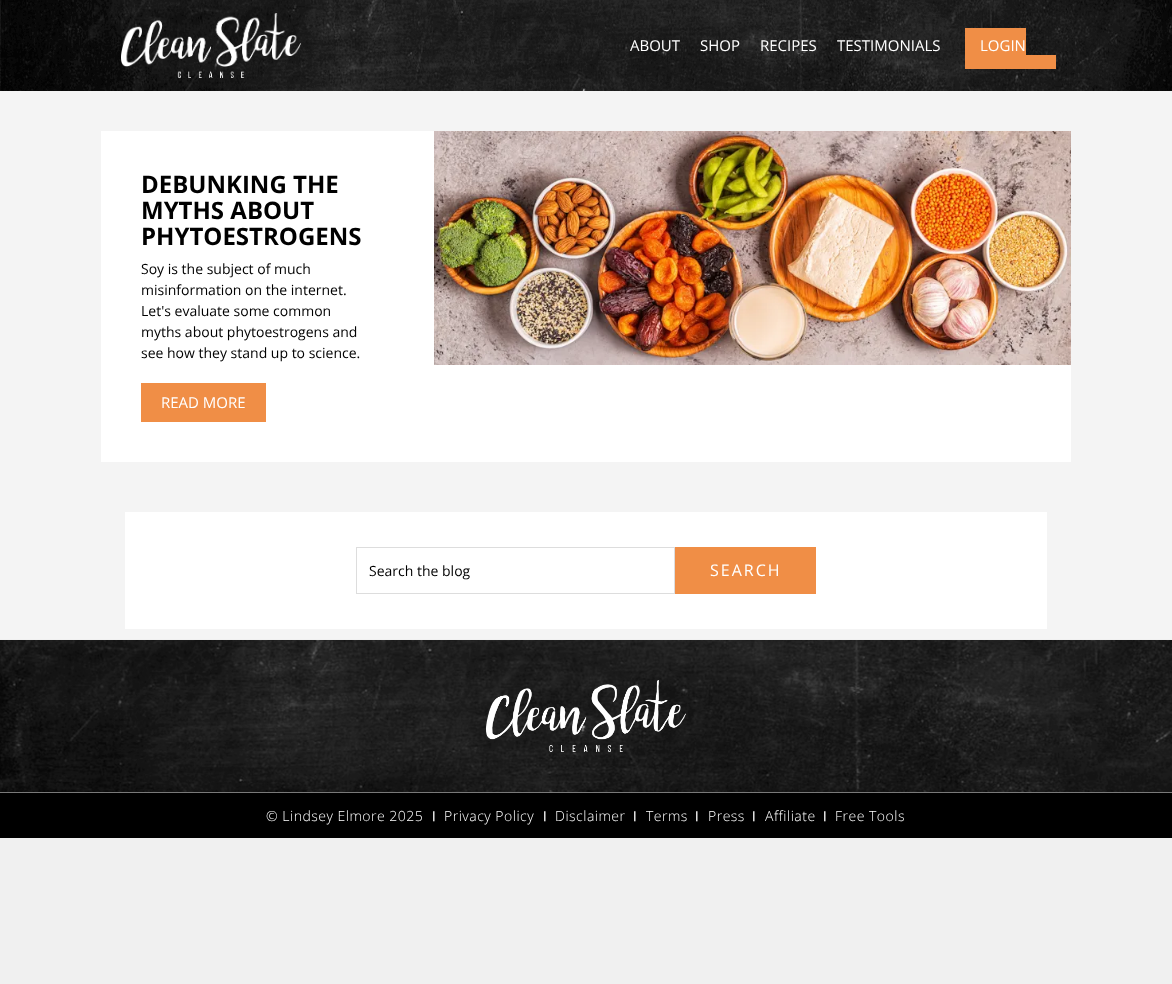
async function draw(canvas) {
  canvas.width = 1172
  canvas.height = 984
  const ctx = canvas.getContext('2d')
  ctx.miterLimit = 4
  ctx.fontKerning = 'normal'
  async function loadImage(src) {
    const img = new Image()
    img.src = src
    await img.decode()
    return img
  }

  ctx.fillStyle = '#f0f0f0'
  ctx.fillRect(0, 0, 1172, 984)
  ctx.drawImage(await loadImage('image0.png'), 0, 0, 1172, 91)
  ctx.drawImage(await loadImage('image1.png'), 121, 13, 180, 65)
  ctx.font = '15px Open Sans'
  ctx.fillStyle = '#fff'
  ctx.fillText('ABOUT', 630, 51)
  ctx.fillText('SHOP', 700, 51)
  ctx.fillText('RECIPES', 760, 51)
  ctx.fillText('TESTIMONIALS', 837, 51)
  ctx.fillStyle = '#f08e46'
  ctx.fillRect(965, 28, 61, 27)
  ctx.fillStyle = '#fff'
  ctx.fillText('LOGIN', 980, 51)
  ctx.fillStyle = '#f08e46'
  ctx.fillRect(965, 55, 91, 14)
  ctx.fillStyle = '#f4f4f4'
  ctx.fillRect(0, 91, 1172, 548)
  ctx.fillStyle = '#fff'
  ctx.fillRect(101, 131, 970, 331)
  ctx.font = 'bold 24px Open Sans'
  ctx.fillStyle = '#000'
  ctx.fillText('DEBUNKING THE', 141, 193)
  ctx.fillText('MYTHS ABOUT', 141, 219)
  ctx.fillText('PHYTOESTROGENS', 141, 245)
  ctx.font = '14px Open Sans'
  ctx.fillText('Soy is the subject of much', 141, 274)
  ctx.fillText('misinformation on the internet.', 141, 295)
  ctx.fillText('Let\'s evaluate some common', 141, 316)
  ctx.fillText('myths about phytoestrogens and', 141, 337)
  ctx.fillText('see how they stand up to science.', 141, 358)
  ctx.fillStyle = '#f08e46'
  ctx.fillRect(141, 383, 125, 39)
  ctx.font = '15px Open Sans'
  ctx.fillStyle = '#fff'
  ctx.fillText('READ MORE', 161, 408)
  ctx.drawImage(await loadImage('image2.png'), 434, 131, 637, 234)
  ctx.fillRect(125, 512, 922, 117)
  ctx.strokeStyle = '#ddd'
  ctx.strokeRect(356.5, 547.5, 318, 46)
  ctx.font = '14px Open Sans'
  ctx.fillStyle = '#000'
  ctx.fillText('Search the blog', 369, 576)
  ctx.fillStyle = '#f08e46'
  ctx.fillRect(675, 547, 141, 47)
  ctx.letterSpacing = '2px'
  ctx.font = '16px Open Sans'
  ctx.fillStyle = '#fff'
  ctx.fillText('SEARCH', 710, 576)
  ctx.drawImage(await loadImage('image3.png'), 0, 640, 1172, 152)
  ctx.drawImage(await loadImage('image4.png'), 486, 680, 200, 72)
  ctx.fillStyle = '#000'
  ctx.fillRect(0, 793, 1172, 45)
  ctx.fillStyle = '#797979'
  ctx.fillRect(0, 792, 1172, 1)
  ctx.letterSpacing = '0.5px'
  ctx.font = '300 14px Open Sans'
  ctx.fillStyle = '#fff'
  ctx.fillText('© Lindsey Elmore 2025', 266, 821)
  ctx.font = '500 11px Poppins'
  ctx.fillText('|', 432, 820)
  ctx.font = '300 14px Open Sans'
  ctx.fillText('Privacy Policy', 444, 821)
  ctx.font = '500 11px Poppins'
  ctx.fillText('|', 543, 820)
  ctx.font = '300 14px Open Sans'
  ctx.fillText('Disclaimer', 555, 821)
  ctx.font = '500 11px Poppins'
  ctx.fillText('|', 633, 820)
  ctx.font = '300 14px Open Sans'
  ctx.fillText('Terms', 646, 821)
  ctx.font = '500 11px Poppins'
  ctx.fillText('|', 695, 820)
  ctx.font = '300 14px Open Sans'
  ctx.fillText('Press', 708, 821)
  ctx.font = '500 11px Poppins'
  ctx.fillText('|', 752, 820)
  ctx.font = '300 14px Open Sans'
  ctx.fillText('Affiliate', 765, 821)
  ctx.font = '500 11px Poppins'
  ctx.fillText('|', 823, 820)
  ctx.font = '300 14px Open Sans'
  ctx.fillText('Free Tools', 835, 821)
}

draw(document.querySelector('canvas'))
